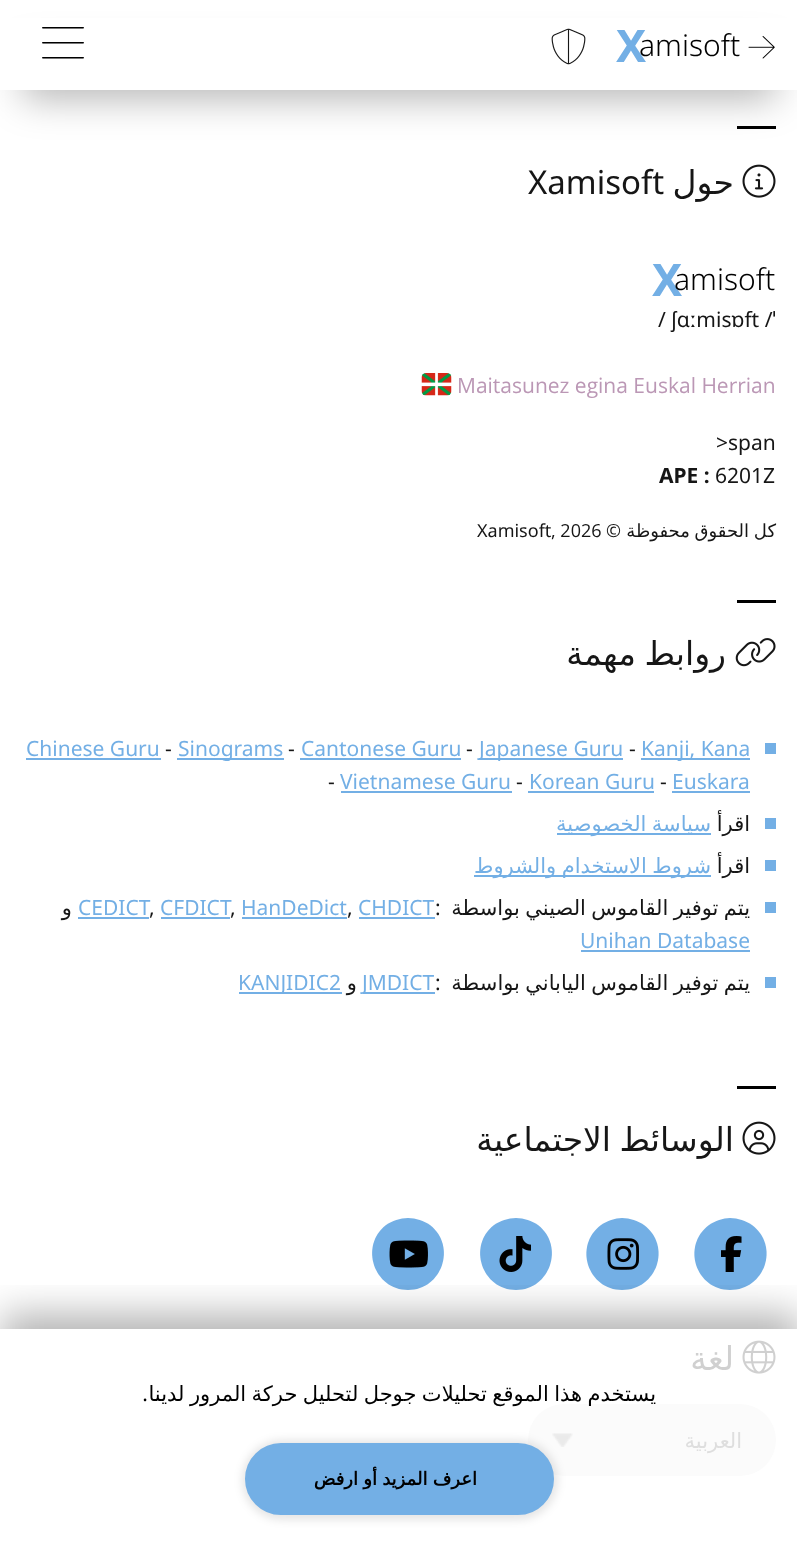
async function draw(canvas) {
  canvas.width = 797
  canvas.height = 1563
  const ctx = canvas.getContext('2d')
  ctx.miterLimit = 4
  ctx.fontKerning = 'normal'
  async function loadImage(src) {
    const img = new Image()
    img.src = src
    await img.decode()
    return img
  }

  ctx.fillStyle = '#fff'
  ctx.fillRect(0, 0, 797, 1563)
  ctx.fillStyle = '#000'
  ctx.fillRect(737, 126, 39, 3)
  ctx.fillStyle = '#0000004d'
  ctx.filter = 'blur(19px)'
  ctx.beginPath()
  ctx.rect(23, 53, 753, 45)
  ctx.fill()
  ctx.filter = 'none'
  ctx.fillStyle = '#fff'
  ctx.fillRect(0, 18, 797, 72)
  ctx.drawImage(await loadImage('image0.png'), 42, 27, 42, 32)
  ctx.drawImage(await loadImage('image1.png'), 551, 28, 35, 37)
  ctx.font = 'bold 45px Noto Sans'
  ctx.fillStyle = '#73afe5'
  ctx.fillText('X', 616, 62)
  ctx.font = '300 30px Noto Sans'
  ctx.fillStyle = '#000'
  ctx.fillText('amisoft', 639, 56)
  ctx.drawImage(await loadImage('image2.png'), 748, 36, 27, 23)
  ctx.font = '33px Noto Sans'
  ctx.fillStyle = '#161616'
  ctx.fillText('Xamisoft', 528, 194)
  ctx.direction = 'rtl'
  ctx.font = '33px DejaVu Sans'
  ctx.fillText('حول', 734, 194)
  ctx.drawImage(await loadImage('image3.png'), 742, 164, 34, 34)
  ctx.direction = 'ltr'
  ctx.font = 'bold 45px Noto Sans'
  ctx.fillStyle = '#73afe5'
  ctx.fillText('X', 652, 296)
  ctx.font = '300 30px Noto Sans'
  ctx.fillStyle = '#000'
  ctx.fillText('amisoft', 674, 290)
  ctx.font = '21px Noto Sans'
  ctx.fillStyle = '#161616'
  ctx.fillText('/ ʃɑːmisɒft /ˈ', 658, 327)
  ctx.drawImage(await loadImage('image4.png'), 421, 373, 31, 23)
  ctx.font = '21px Open Sans'
  ctx.fillStyle = '#bb97b5'
  ctx.fillText('Maitasunez egina Euskal Herrian', 457, 393)
  ctx.font = '21px Noto Sans'
  ctx.fillStyle = '#161616'
  ctx.fillText('>span', 716, 450)
  ctx.font = 'bold 21px Noto Sans'
  ctx.fillText('APE :', 659, 483)
  ctx.font = '21px Noto Sans'
  ctx.fillText('6201Z', 715, 483)
  ctx.font = '18px Noto Sans'
  ctx.fillText('Xamisoft', 477, 537)
  ctx.font = '18px Open Sans'
  ctx.fillText(', 2026', 551, 537)
  ctx.direction = 'rtl'
  ctx.fillText('©', 621, 537)
  ctx.wordSpacing = '-1px'
  ctx.font = '18px DejaVu Sans'
  ctx.fillText('كل الحقوق محفوظة', 776, 537)
  ctx.fillStyle = '#000'
  ctx.fillRect(737, 600, 39, 3)
  ctx.wordSpacing = '-2px'
  ctx.font = '33px DejaVu Sans'
  ctx.fillStyle = '#161616'
  ctx.fillText('روابط مهمة', 726, 665)
  ctx.drawImage(await loadImage('image5.png'), 735, 638, 41, 29)
  ctx.wordSpacing = '0px'
  ctx.direction = 'ltr'
  ctx.font = '21px Noto Sans'
  ctx.fillStyle = '#73afe5'
  ctx.fillText('Chinese Guru', 26, 756)
  ctx.fillRect(26, 758, 135, 2)
  ctx.fillStyle = '#161616'
  ctx.fillText('-', 165, 756)
  ctx.fillStyle = '#73afe5'
  ctx.fillRect(177, 758, 107, 2)
  ctx.fillText('Sinograms', 178, 756)
  ctx.fillStyle = '#161616'
  ctx.fillText('-', 288, 756)
  ctx.fillStyle = '#73afe5'
  ctx.fillText('Cantonese Guru', 301, 756)
  ctx.fillRect(300, 758, 161, 2)
  ctx.fillStyle = '#161616'
  ctx.fillText('-', 466, 756)
  ctx.fillStyle = '#73afe5'
  ctx.fillRect(479, 758, 144, 2)
  ctx.fillText('Japanese Guru', 479, 756)
  ctx.fillStyle = '#161616'
  ctx.fillText('-', 629, 756)
  ctx.fillStyle = '#73afe5'
  ctx.fillRect(641, 758, 109, 2)
  ctx.fillText('Kanji, Kana', 641, 756)
  ctx.fillStyle = '#161616'
  ctx.fillText('-', 328, 789)
  ctx.fillStyle = '#73afe5'
  ctx.fillText('Vietnamese Guru', 340, 789)
  ctx.fillRect(341, 791, 171, 2)
  ctx.fillStyle = '#161616'
  ctx.fillText('-', 516, 789)
  ctx.fillStyle = '#73afe5'
  ctx.fillText('Korean Guru', 529, 789)
  ctx.fillRect(528, 791, 126, 2)
  ctx.fillStyle = '#161616'
  ctx.fillText('-', 660, 789)
  ctx.fillStyle = '#73afe5'
  ctx.fillText('Euskara', 672, 789)
  ctx.fillRect(672, 791, 78, 2)
  ctx.fillRect(765, 743, 11, 11)
  ctx.fillRect(557, 833, 154, 2)
  ctx.wordSpacing = '-1.25px'
  ctx.direction = 'rtl'
  ctx.font = '21px DejaVu Sans'
  ctx.fillText('سياسة الخصوصية', 711, 831)
  ctx.wordSpacing = '0px'
  ctx.fillStyle = '#161616'
  ctx.fillText('اقرأ', 750, 831)
  ctx.fillStyle = '#73afe5'
  ctx.fillRect(765, 818, 11, 11)
  ctx.fillRect(474, 875, 237, 2)
  ctx.wordSpacing = '-1.25px'
  ctx.fillText('شروط الاستخدام والشروط', 711, 873)
  ctx.wordSpacing = '0px'
  ctx.fillStyle = '#161616'
  ctx.fillText('اقرأ', 750, 873)
  ctx.fillStyle = '#73afe5'
  ctx.fillRect(765, 860, 11, 11)
  ctx.fillStyle = '#161616'
  ctx.fillText('و', 72, 915)
  ctx.direction = 'ltr'
  ctx.font = '21px Noto Sans'
  ctx.fillStyle = '#73afe5'
  ctx.fillText('CEDICT', 78, 915)
  ctx.fillRect(78, 917, 71, 2)
  ctx.fillStyle = '#161616'
  ctx.fillText(',', 149, 915)
  ctx.fillStyle = '#73afe5'
  ctx.fillText('CFDICT', 160, 915)
  ctx.fillRect(161, 917, 69, 2)
  ctx.fillStyle = '#161616'
  ctx.fillText(',', 230, 915)
  ctx.fillStyle = '#73afe5'
  ctx.fillText('HanDeDict', 241, 915)
  ctx.fillRect(242, 917, 105, 2)
  ctx.fillStyle = '#161616'
  ctx.fillText(',', 347, 915)
  ctx.fillStyle = '#73afe5'
  ctx.fillText('CHDICT', 358, 915)
  ctx.fillRect(359, 917, 76, 2)
  ctx.fillStyle = '#161616'
  ctx.fillText(':', 435, 915)
  ctx.wordSpacing = '-1.25px'
  ctx.direction = 'rtl'
  ctx.font = '21px DejaVu Sans'
  ctx.fillText('يتم توفير القاموس الصيني بواسطة', 750, 915)
  ctx.wordSpacing = '0px'
  ctx.direction = 'ltr'
  ctx.font = '21px Noto Sans'
  ctx.fillStyle = '#73afe5'
  ctx.fillText('Unihan Database', 580, 948)
  ctx.fillRect(581, 950, 169, 2)
  ctx.fillRect(765, 902, 11, 11)
  ctx.fillRect(239, 992, 103, 2)
  ctx.fillText('KANJIDIC2', 238, 990)
  ctx.direction = 'rtl'
  ctx.font = '21px DejaVu Sans'
  ctx.fillStyle = '#161616'
  ctx.fillText('و', 357, 990)
  ctx.fillStyle = '#73afe5'
  ctx.fillRect(363, 992, 72, 2)
  ctx.direction = 'ltr'
  ctx.font = '21px Noto Sans'
  ctx.fillText('JMDICT', 362, 990)
  ctx.fillStyle = '#161616'
  ctx.fillText(':', 435, 990)
  ctx.wordSpacing = '-1.25px'
  ctx.direction = 'rtl'
  ctx.font = '21px DejaVu Sans'
  ctx.fillText('يتم توفير القاموس الياباني بواسطة', 750, 990)
  ctx.fillStyle = '#73afe5'
  ctx.fillRect(765, 977, 11, 11)
  ctx.fillStyle = '#000'
  ctx.fillRect(737, 1086, 39, 3)
  ctx.wordSpacing = '-2px'
  ctx.font = '33px DejaVu Sans'
  ctx.fillStyle = '#161616'
  ctx.fillText('الوسائط الاجتماعية', 734, 1151)
  ctx.drawImage(await loadImage('image6.png'), 742, 1121, 34, 34)
  ctx.fillStyle = '#73afe5'
  ctx.beginPath()
  ctx.moveTo(408, 1290)
  ctx.bezierCurveTo(442, 1290, 457, 1246, 430, 1225)
  ctx.bezierCurveTo(424, 1221, 416, 1218, 408, 1218)
  ctx.bezierCurveTo(400, 1218, 392, 1221, 386, 1225)
  ctx.bezierCurveTo(359, 1246, 374, 1290, 408, 1290)
  ctx.closePath()
  ctx.fill()
  ctx.drawImage(await loadImage('image7.png'), 389, 1240, 39, 28)
  ctx.beginPath()
  ctx.moveTo(516, 1290)
  ctx.bezierCurveTo(550, 1290, 565, 1246, 538, 1225)
  ctx.bezierCurveTo(532, 1221, 524, 1218, 516, 1218)
  ctx.bezierCurveTo(508, 1218, 500, 1221, 494, 1225)
  ctx.bezierCurveTo(467, 1246, 482, 1290, 516, 1290)
  ctx.closePath()
  ctx.fill()
  ctx.drawImage(await loadImage('image8.png'), 499, 1236, 32, 36)
  ctx.beginPath()
  ctx.moveTo(622, 1290)
  ctx.bezierCurveTo(657, 1290, 672, 1246, 644, 1225)
  ctx.bezierCurveTo(638, 1221, 630, 1218, 622, 1218)
  ctx.bezierCurveTo(615, 1218, 607, 1221, 601, 1225)
  ctx.bezierCurveTo(573, 1246, 588, 1290, 622, 1290)
  ctx.closePath()
  ctx.fill()
  ctx.drawImage(await loadImage('image9.png'), 607, 1238, 32, 32)
  ctx.beginPath()
  ctx.moveTo(730, 1290)
  ctx.bezierCurveTo(765, 1290, 780, 1246, 752, 1225)
  ctx.bezierCurveTo(746, 1221, 738, 1218, 730, 1218)
  ctx.bezierCurveTo(723, 1218, 715, 1221, 709, 1225)
  ctx.bezierCurveTo(681, 1246, 696, 1290, 730, 1290)
  ctx.closePath()
  ctx.fill()
  ctx.drawImage(await loadImage('image10.png'), 721, 1236, 21, 36)
  ctx.wordSpacing = '0px'
  ctx.fillStyle = '#d0d0d0'
  ctx.fillText('لغة', 734, 1370)
  ctx.drawImage(await loadImage('image11.png'), 742, 1340, 34, 34)
  ctx.fillStyle = '#fbfbfb'
  ctx.beginPath()
  ctx.roundRect(528, 1404, 248, 72, 36)
  ctx.fill()
  ctx.drawImage(await loadImage('image12.png'), 552, 1433, 21, 14)
  ctx.font = '21px DejaVu Sans'
  ctx.fillStyle = '#dedede'
  ctx.fillText('العربية', 742, 1448)
  ctx.save()
  ctx.beginPath()
  ctx.rect(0, 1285, 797, 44)
  ctx.clip()
  ctx.fillStyle = '#0000004d'
  ctx.filter = 'blur(19px)'
  ctx.beginPath()
  ctx.rect(2, 1314, 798, 234)
  ctx.fill()
  ctx.filter = 'none'
  ctx.restore()
  ctx.font = '21px Noto Sans'
  ctx.fillStyle = '#000'
  ctx.fillText('.', 148, 1401)
  ctx.wordSpacing = '-1.25px'
  ctx.font = '21px DejaVu Sans'
  ctx.fillText('يستخدم هذا الموقع تحليلات جوجل لتحليل حركة المرور لدينا', 656, 1401)
  ctx.fillStyle = '#0000001a'
  ctx.filter = 'blur(4px)'
  ctx.beginPath()
  ctx.roundRect(242, 1440, 316, 80, 40)
  ctx.fill()
  ctx.filter = 'none'
  ctx.fillStyle = '#73afe5'
  ctx.beginPath()
  ctx.roundRect(246.5, 1444.5, 306, 69, 34.5)
  ctx.fill()
  ctx.strokeStyle = '#73afe5'
  ctx.lineWidth = 3
  ctx.stroke()
  ctx.wordSpacing = '-0.5px'
  ctx.font = 'bold 18px DejaVu Sans'
  ctx.fillStyle = '#000'
  ctx.fillText('اعرف المزيد أو ارفض', 477, 1485)
}

draw(document.querySelector('canvas'))
